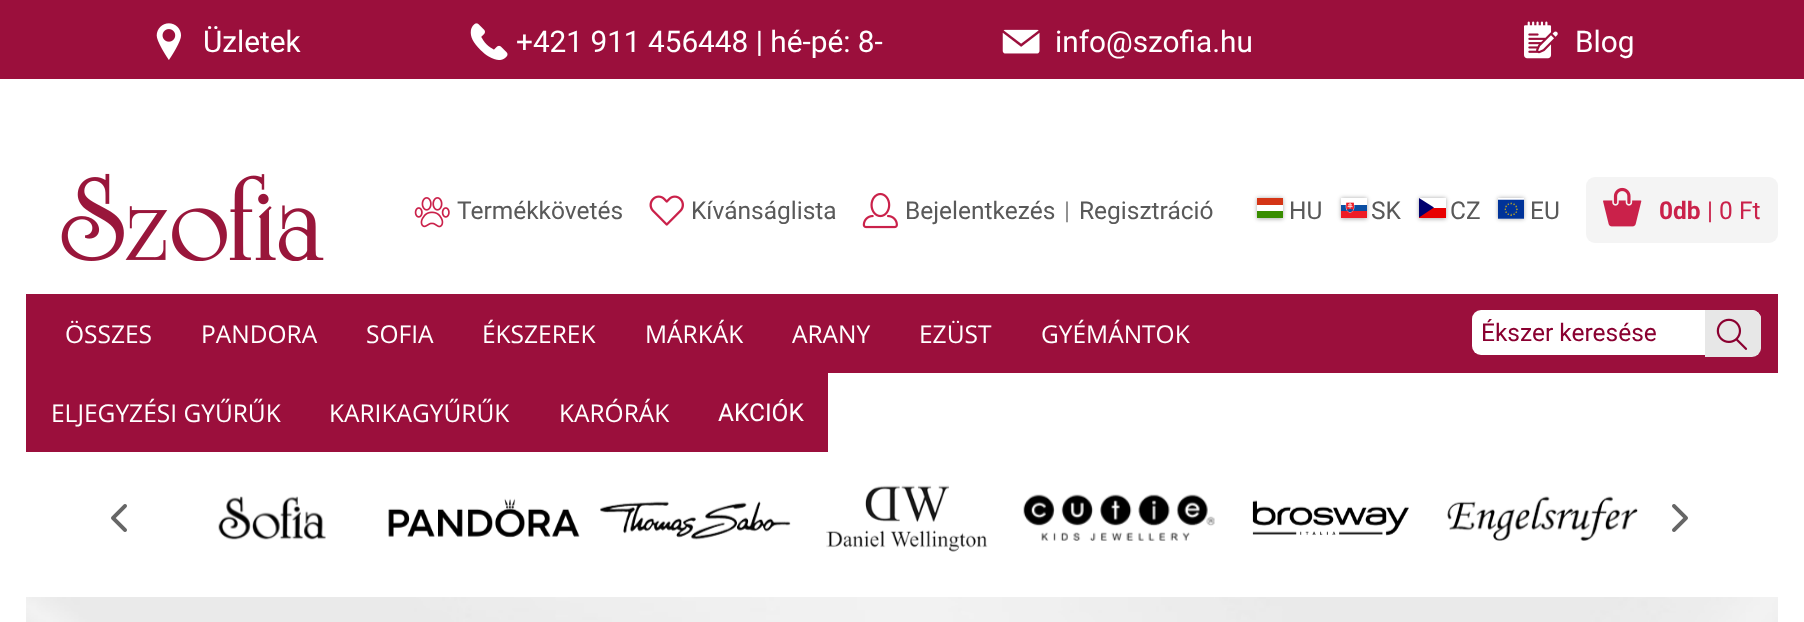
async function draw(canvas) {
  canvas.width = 1804
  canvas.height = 622
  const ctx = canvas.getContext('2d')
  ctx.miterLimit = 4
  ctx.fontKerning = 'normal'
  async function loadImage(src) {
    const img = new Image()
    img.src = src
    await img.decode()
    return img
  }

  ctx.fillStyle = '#fff'
  ctx.fillRect(0, 0, 1804, 622)
  ctx.fillStyle = '#9b0f3c'
  ctx.fillRect(0, 0, 1804, 79)
  ctx.drawImage(await loadImage('image0.png'), 156, 23, 25, 37)
  ctx.font = '29.75px Roboto'
  ctx.fillStyle = '#fff'
  ctx.fillText('Üzletek', 203, 52)
  ctx.drawImage(await loadImage('image1.png'), 470, 23, 38, 37)
  ctx.fillText('+421 911 456448 | hé-pé: 8-', 516, 52)
  ctx.drawImage(await loadImage('image2.png'), 1002, 29, 38, 25)
  ctx.fillText('info@szofia.hu', 1055, 52)
  ctx.drawImage(await loadImage('image3.png'), 1524, 21, 34, 38)
  ctx.fillText('Blog', 1575, 52)
  ctx.drawImage(await loadImage('image4.png'), 414, 197, 36, 31)
  ctx.font = '24.5px Roboto'
  ctx.fillStyle = '#595959'
  ctx.fillText('Termékkövetés', 457, 219)
  ctx.drawImage(await loadImage('image5.png'), 649, 195, 35, 31)
  ctx.fillText('Kívánságlista', 691, 219)
  ctx.drawImage(await loadImage('image6.png'), 862, 192, 36, 37)
  ctx.fillText('Bejelentkezés', 905, 219)
  ctx.fillStyle = '#868686'
  ctx.fillText('|', 1064, 219)
  ctx.fillStyle = '#595959'
  ctx.fillText('Regisztráció', 1079, 219)
  ctx.fillStyle = '#00000054'
  ctx.filter = 'blur(2px)'
  ctx.beginPath()
  ctx.rect(1257, 198, 26, 21)
  ctx.fill()
  ctx.filter = 'none'
  ctx.fillStyle = '#fff'
  ctx.fillRect(1257, 205, 26, 6)
  ctx.fillStyle = '#388d00'
  ctx.fillRect(1257, 211, 26, 7)
  ctx.fillStyle = '#d43516'
  ctx.fillRect(1257, 198, 26, 7)
  ctx.fillStyle = '#595959'
  ctx.fillText('HU', 1289, 219)
  ctx.fillStyle = '#00000054'
  ctx.filter = 'blur(2px)'
  ctx.beginPath()
  ctx.rect(1341, 198, 26, 21)
  ctx.fill()
  ctx.filter = 'none'
  ctx.drawImage(await loadImage('image7.png'), 1341, 198, 26, 20)
  ctx.fillStyle = '#595959'
  ctx.fillText('SK', 1371, 219)
  ctx.fillStyle = '#00000054'
  ctx.filter = 'blur(2px)'
  ctx.beginPath()
  ctx.rect(1419, 198, 27, 21)
  ctx.fill()
  ctx.filter = 'none'
  ctx.fillStyle = '#e80000'
  ctx.fillRect(1419, 208, 27, 10)
  ctx.fillStyle = '#fff'
  ctx.fillRect(1419, 198, 27, 10)
  ctx.fillStyle = '#00006f'
  ctx.beginPath()
  ctx.moveTo(1419, 217.5)
  ctx.lineTo(1419, 198)
  ctx.lineTo(1434, 207.5)
  ctx.closePath()
  ctx.fill()
  ctx.fillStyle = '#595959'
  ctx.fillText('CZ', 1450, 219)
  ctx.save()
  ctx.beginPath()
  ctx.moveTo(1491, 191)
  ctx.lineTo(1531, 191)
  ctx.lineTo(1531, 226)
  ctx.lineTo(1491, 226)
  ctx.closePath()
  ctx.moveTo(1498, 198)
  ctx.lineTo(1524, 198)
  ctx.lineTo(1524, 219)
  ctx.lineTo(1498, 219)
  ctx.closePath()
  ctx.clip('evenodd')
  ctx.fillStyle = '#00000054'
  ctx.filter = 'blur(2px)'
  ctx.beginPath()
  ctx.rect(1498, 198, 26, 21)
  ctx.fill()
  ctx.filter = 'none'
  ctx.restore()
  ctx.drawImage(await loadImage('image8.png'), 1498, 199, 26, 20)
  ctx.fillText('EU', 1530, 219)
  ctx.fillStyle = '#f4f4f4'
  ctx.beginPath()
  ctx.roundRect(1586, 177, 192, 66, 9)
  ctx.fill()
  ctx.drawImage(await loadImage('image9.png'), 1603, 187, 39, 40)
  ctx.font = 'bold 24.5px Roboto'
  ctx.fillStyle = '#ca214a'
  ctx.fillText('0db', 1659, 219)
  ctx.font = '24.5px Roboto'
  ctx.fillText('| 0 Ft', 1707, 219)
  ctx.fillStyle = '#9b0f3c'
  ctx.fillRect(26, 294, 1752, 79)
  ctx.drawImage(await loadImage('image10.png'), 61, 173, 263, 88)
  ctx.font = '24.5px Open Sans'
  ctx.fillStyle = '#fff'
  ctx.fillText('ÖSSZES', 65, 343)
  ctx.fillText('PANDORA', 201, 343)
  ctx.fillText('SOFIA', 366, 343)
  ctx.fillText('ÉKSZEREK', 482, 343)
  ctx.fillText('MÁRKÁK', 645, 343)
  ctx.fillText('ARANY', 792, 343)
  ctx.fillText('EZÜST', 919, 343)
  ctx.fillText('GYÉMÁNTOK', 1041, 343)
  ctx.fillStyle = '#9b0f3c'
  ctx.fillRect(26, 373, 667, 79)
  ctx.fillStyle = '#fff'
  ctx.fillText('ELJEGYZÉSI GYŰRŰK', 51, 422)
  ctx.fillText('KARIKAGYŰRŰK', 329, 422)
  ctx.fillText('KARÓRÁK', 559, 422)
  ctx.fillStyle = '#9b0f3c'
  ctx.fillRect(693, 373, 135, 79)
  ctx.font = '24.5px Roboto'
  ctx.fillStyle = '#fff'
  ctx.fillText('AKCIÓK', 718, 421)
  ctx.beginPath()
  ctx.roundRect(1472, 310, 289, 45, 9)
  ctx.fill()
  ctx.save()
  ctx.beginPath()
  ctx.rect(1481, 319, 218, 28)
  ctx.clip()
  ctx.fillStyle = '#8a0030'
  ctx.fillText('Ékszer keresése', 1481, 341)
  ctx.restore()
  ctx.fillStyle = '#e7e7e7'
  ctx.beginPath()
  ctx.roundRect(1705, 310, 56, 47, [0, 9, 9, 0])
  ctx.fill()
  ctx.drawImage(await loadImage('image11.png'), 1716, 318, 32, 32)
  ctx.drawImage(await loadImage('image12.png'), 111, 504, 16, 28)
  ctx.drawImage(await loadImage('image13.png'), 218, 496, 108, 44)
  ctx.drawImage(await loadImage('image14.png'), 388, 498, 192, 40)
  ctx.drawImage(await loadImage('image15.png'), 600, 501, 191, 39)
  ctx.drawImage(await loadImage('image16.png'), 826, 485, 162, 67)
  ctx.drawImage(await loadImage('image17.png'), 1023, 494, 192, 47)
  ctx.drawImage(await loadImage('image18.png'), 1252, 500, 157, 36)
  ctx.drawImage(await loadImage('image19.png'), 1447, 496, 191, 45)
  ctx.drawImage(await loadImage('image20.png'), 1672, 504, 16, 28)
  ctx.drawImage(await loadImage('image21.png'), 26, 597, 1752, 25)
}

draw(document.querySelector('canvas'))
